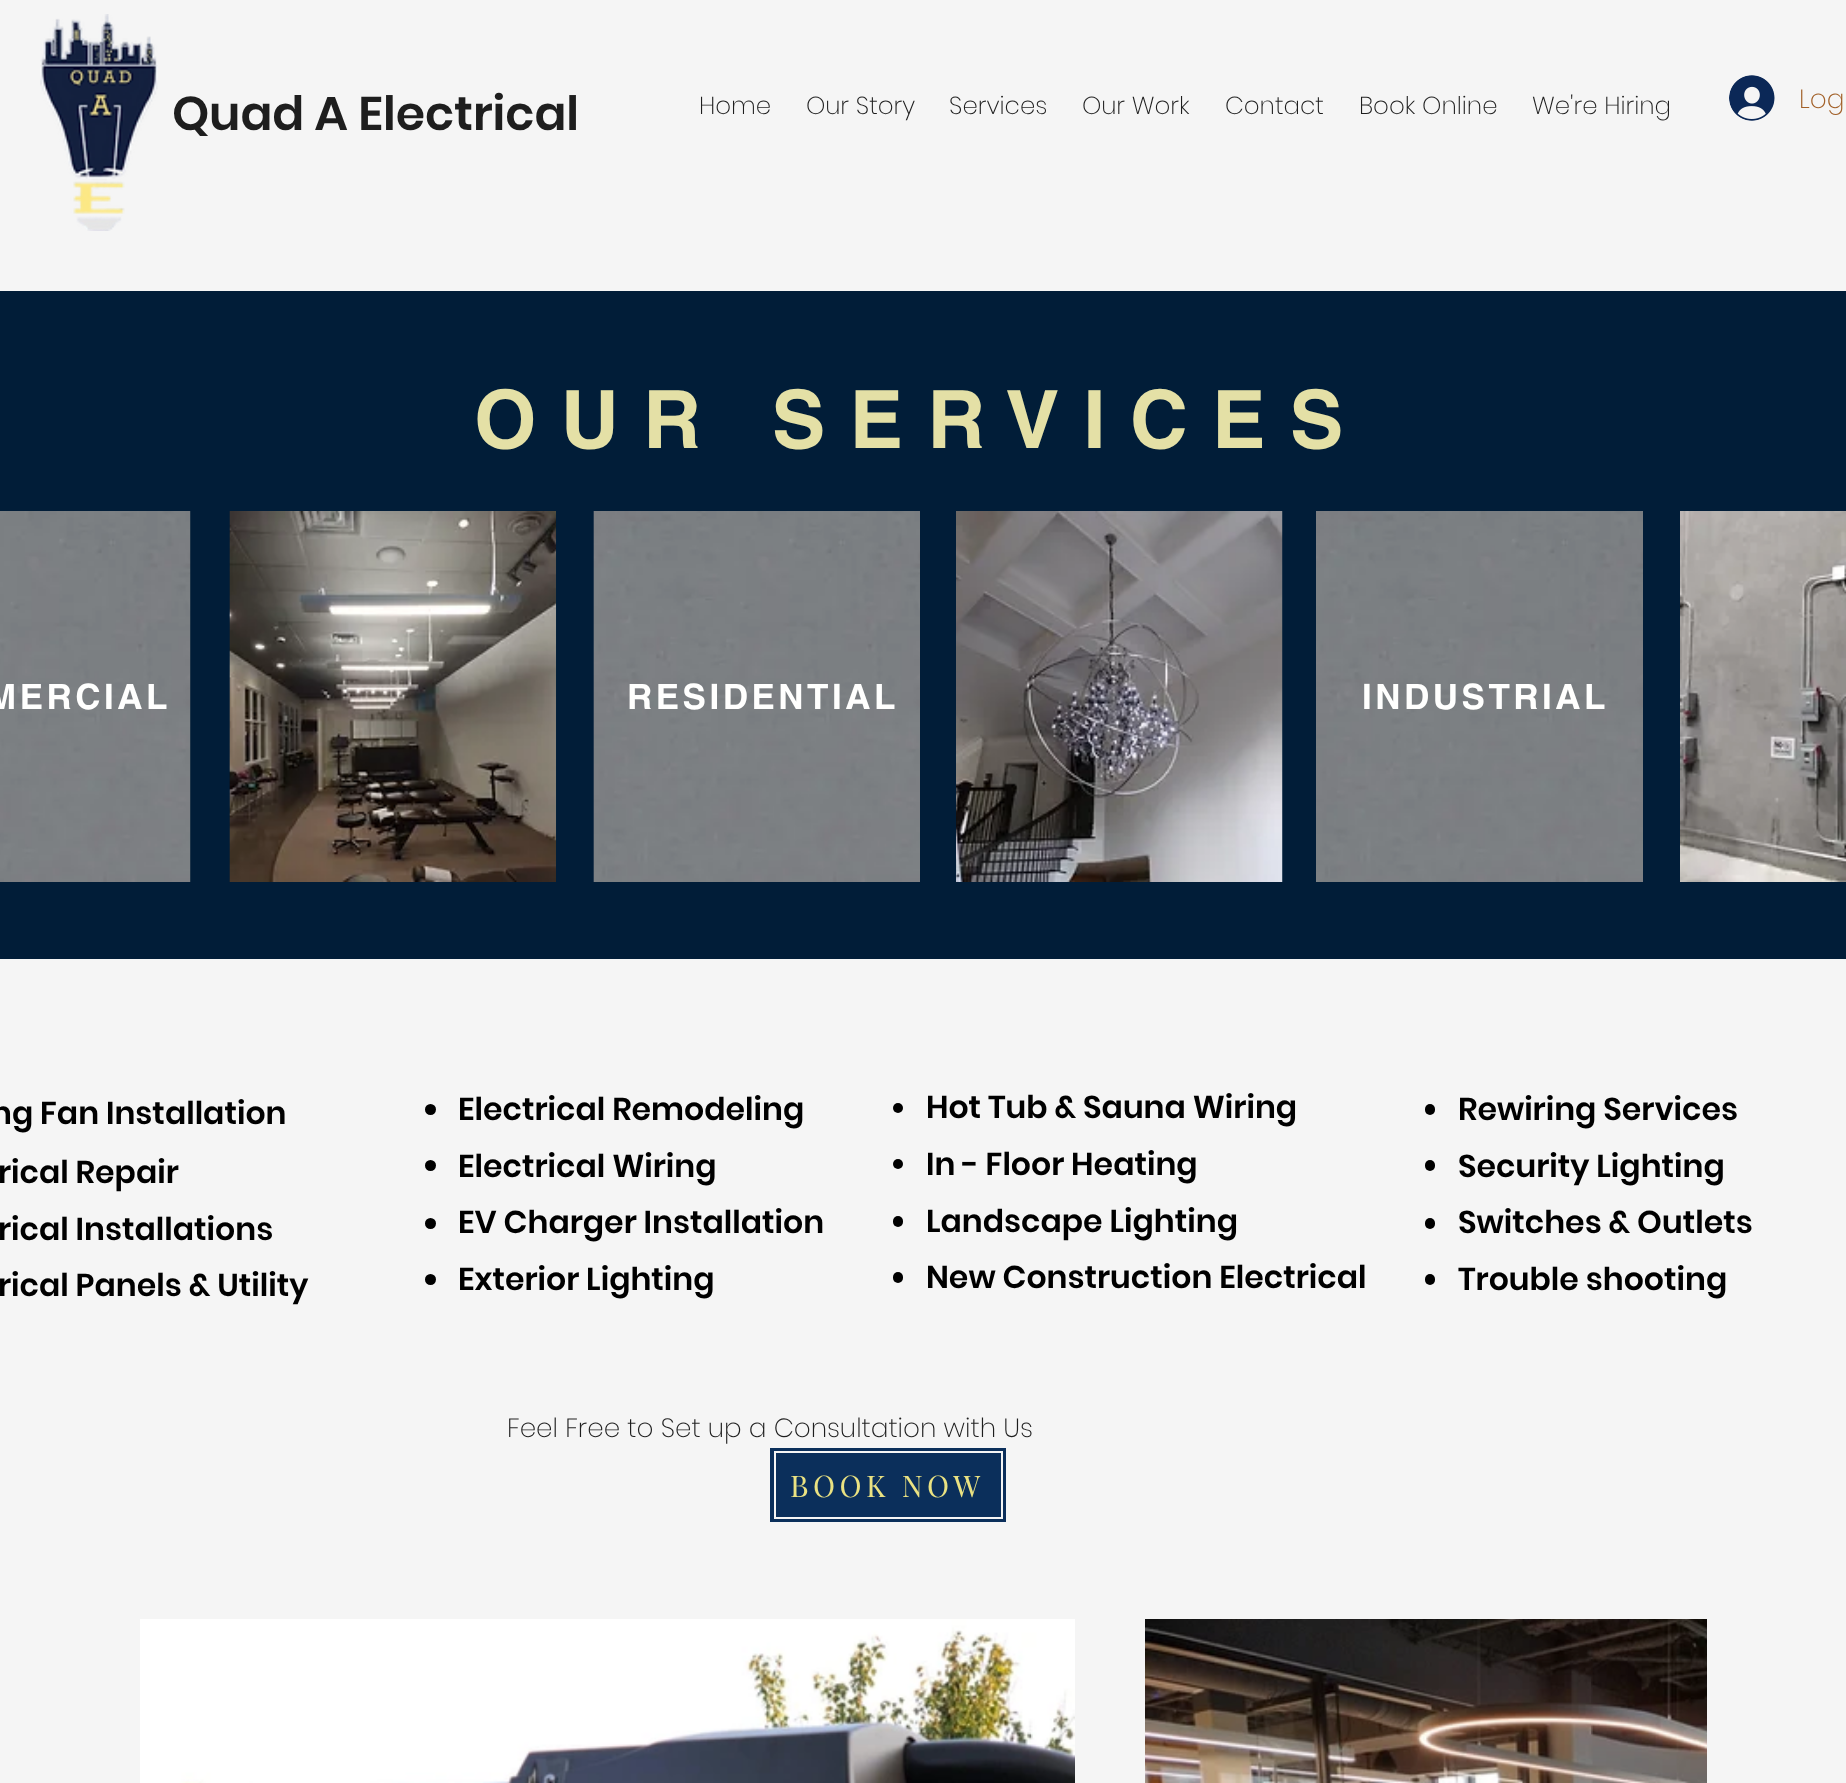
async function draw(canvas) {
  canvas.width = 1846
  canvas.height = 1783
  const ctx = canvas.getContext('2d')
  ctx.miterLimit = 4
  ctx.fontKerning = 'normal'
  async function loadImage(src) {
    const img = new Image()
    img.src = src
    await img.decode()
    return img
  }

  ctx.fillStyle = '#f5f5f5'
  ctx.fillRect(0, 0, 1846, 1783)
  ctx.drawImage(await loadImage('image0.png'), 40, 14, 118, 217)
  ctx.font = '600 47.25px Poppins'
  ctx.fillStyle = '#1e1e1e'
  ctx.fillText('Quad A Electrical', 172, 130)
  ctx.font = '200 24.5px Poppins'
  ctx.fillText('Home', 699, 114)
  ctx.fillText('Our Story', 806, 114)
  ctx.fillText('Services', 949, 114)
  ctx.fillText('Our Work', 1082, 114)
  ctx.fillText('Contact', 1225, 114)
  ctx.fillText('Book Online', 1359, 114)
  ctx.fillText('We\'re Hiring', 1532, 114)
  ctx.drawImage(await loadImage('image1.png'), 1729, 75, 46, 46)
  ctx.font = '200 26.25px Poppins'
  ctx.fillStyle = '#a26028'
  ctx.fillText('Log', 1799, 108)
  ctx.fillStyle = '#011d38'
  ctx.fillRect(0, 291, 1846, 668)
  ctx.letterSpacing = '24.1px'
  ctx.font = 'bold 80.5px helvetica'
  ctx.fillStyle = '#e4e0a6'
  ctx.fillText('OUR SERVICES', 474, 448)
  ctx.drawImage(await loadImage('image2.png'), 0, 511, 191, 371)
  ctx.drawImage(await loadImage('image3.png'), 229, 511, 328, 371)
  ctx.drawImage(await loadImage('image4.png'), 593, 511, 327, 371)
  ctx.drawImage(await loadImage('image5.png'), 956, 511, 327, 371)
  ctx.drawImage(await loadImage('image6.png'), 1316, 511, 327, 371)
  ctx.drawImage(await loadImage('image7.png'), 1680, 511, 166, 371)
  ctx.letterSpacing = '3.5px'
  ctx.font = 'bold 35px helvetica'
  ctx.fillStyle = '#fffffe'
  ctx.fillText('MERCIAL', -13, 709)
  ctx.fillText('RESIDENTIAL', 627, 709)
  ctx.fillText('INDUSTRIAL', 1362, 709)
  ctx.letterSpacing = '0px'
  ctx.font = '600 31.5px Poppins'
  ctx.fillStyle = '#000'
  ctx.fillText('ng Fan Installation', -9, 1124)
  ctx.fillText('rical Repair', -2, 1183)
  ctx.fillText('rical Installations', -2, 1240)
  ctx.fillText('rical Panels & Utility', -2, 1296)
  ctx.beginPath()
  ctx.arc(898, 1108, 5, 0, 2 * Math.PI)
  ctx.fill()
  ctx.fillText('Hot Tub & Sauna Wiring', 926, 1118)
  ctx.beginPath()
  ctx.arc(898, 1164, 5, 0, 2 * Math.PI)
  ctx.fill()
  ctx.fillText('In - Floor Heating', 926, 1175)
  ctx.beginPath()
  ctx.roundRect(893, 1216, 10, 11, 5)
  ctx.fill()
  ctx.fillText('Landscape Lighting', 926, 1232)
  ctx.beginPath()
  ctx.roundRect(893, 1272, 10, 11, 5)
  ctx.fill()
  ctx.fillText('New Construction Electrical', 926, 1288)
  ctx.beginPath()
  ctx.roundRect(1425, 1104, 10, 11, 5)
  ctx.fill()
  ctx.fillText('Rewiring Services', 1458, 1120)
  ctx.beginPath()
  ctx.roundRect(1425, 1160, 10, 11, 5)
  ctx.fill()
  ctx.fillText('Security Lighting', 1458, 1177)
  ctx.beginPath()
  ctx.roundRect(1425, 1218, 10, 11, 5)
  ctx.fill()
  ctx.fillText('Switches & Outlets', 1458, 1233)
  ctx.beginPath()
  ctx.roundRect(1425, 1274, 10, 11, 5)
  ctx.fill()
  ctx.fillText('Trouble shooting', 1458, 1290)
  ctx.font = '200 26.25px Poppins'
  ctx.fillStyle = '#1e1e1e'
  ctx.fillText('Feel Free to Set up a Consultation with Us', 507, 1437)
  ctx.fillStyle = '#000'
  ctx.beginPath()
  ctx.arc(430.5, 1109.5, 5.5, 0, 2 * Math.PI)
  ctx.fill()
  ctx.font = '600 31.5px Poppins'
  ctx.fillText('Electrical Remodeling', 458, 1120)
  ctx.beginPath()
  ctx.arc(430.5, 1165.5, 5.5, 0, 2 * Math.PI)
  ctx.fill()
  ctx.fillText('Electrical Wiring', 458, 1177)
  ctx.beginPath()
  ctx.arc(430.5, 1223.5, 5.5, 0, 2 * Math.PI)
  ctx.fill()
  ctx.fillText('EV Charger Installation', 458, 1233)
  ctx.beginPath()
  ctx.arc(430.5, 1279.5, 5.5, 0, 2 * Math.PI)
  ctx.fill()
  ctx.fillText('Exterior Lighting', 458, 1290)
  ctx.fillStyle = '#0b2f5b'
  ctx.fillRect(770, 1448, 236, 74)
  ctx.strokeStyle = '#f5f5f5'
  ctx.lineWidth = 2
  ctx.strokeRect(775, 1452, 227, 66)
  ctx.letterSpacing = '4.5px'
  ctx.font = '29.75px Playfair Display'
  ctx.fillStyle = '#eae282'
  ctx.fillText('BOOK NOW', 790, 1497)
  ctx.drawImage(await loadImage('image8.png'), 140, 1619, 935, 164)
  ctx.drawImage(await loadImage('image9.png'), 1145, 1619, 562, 164)
}

draw(document.querySelector('canvas'))
